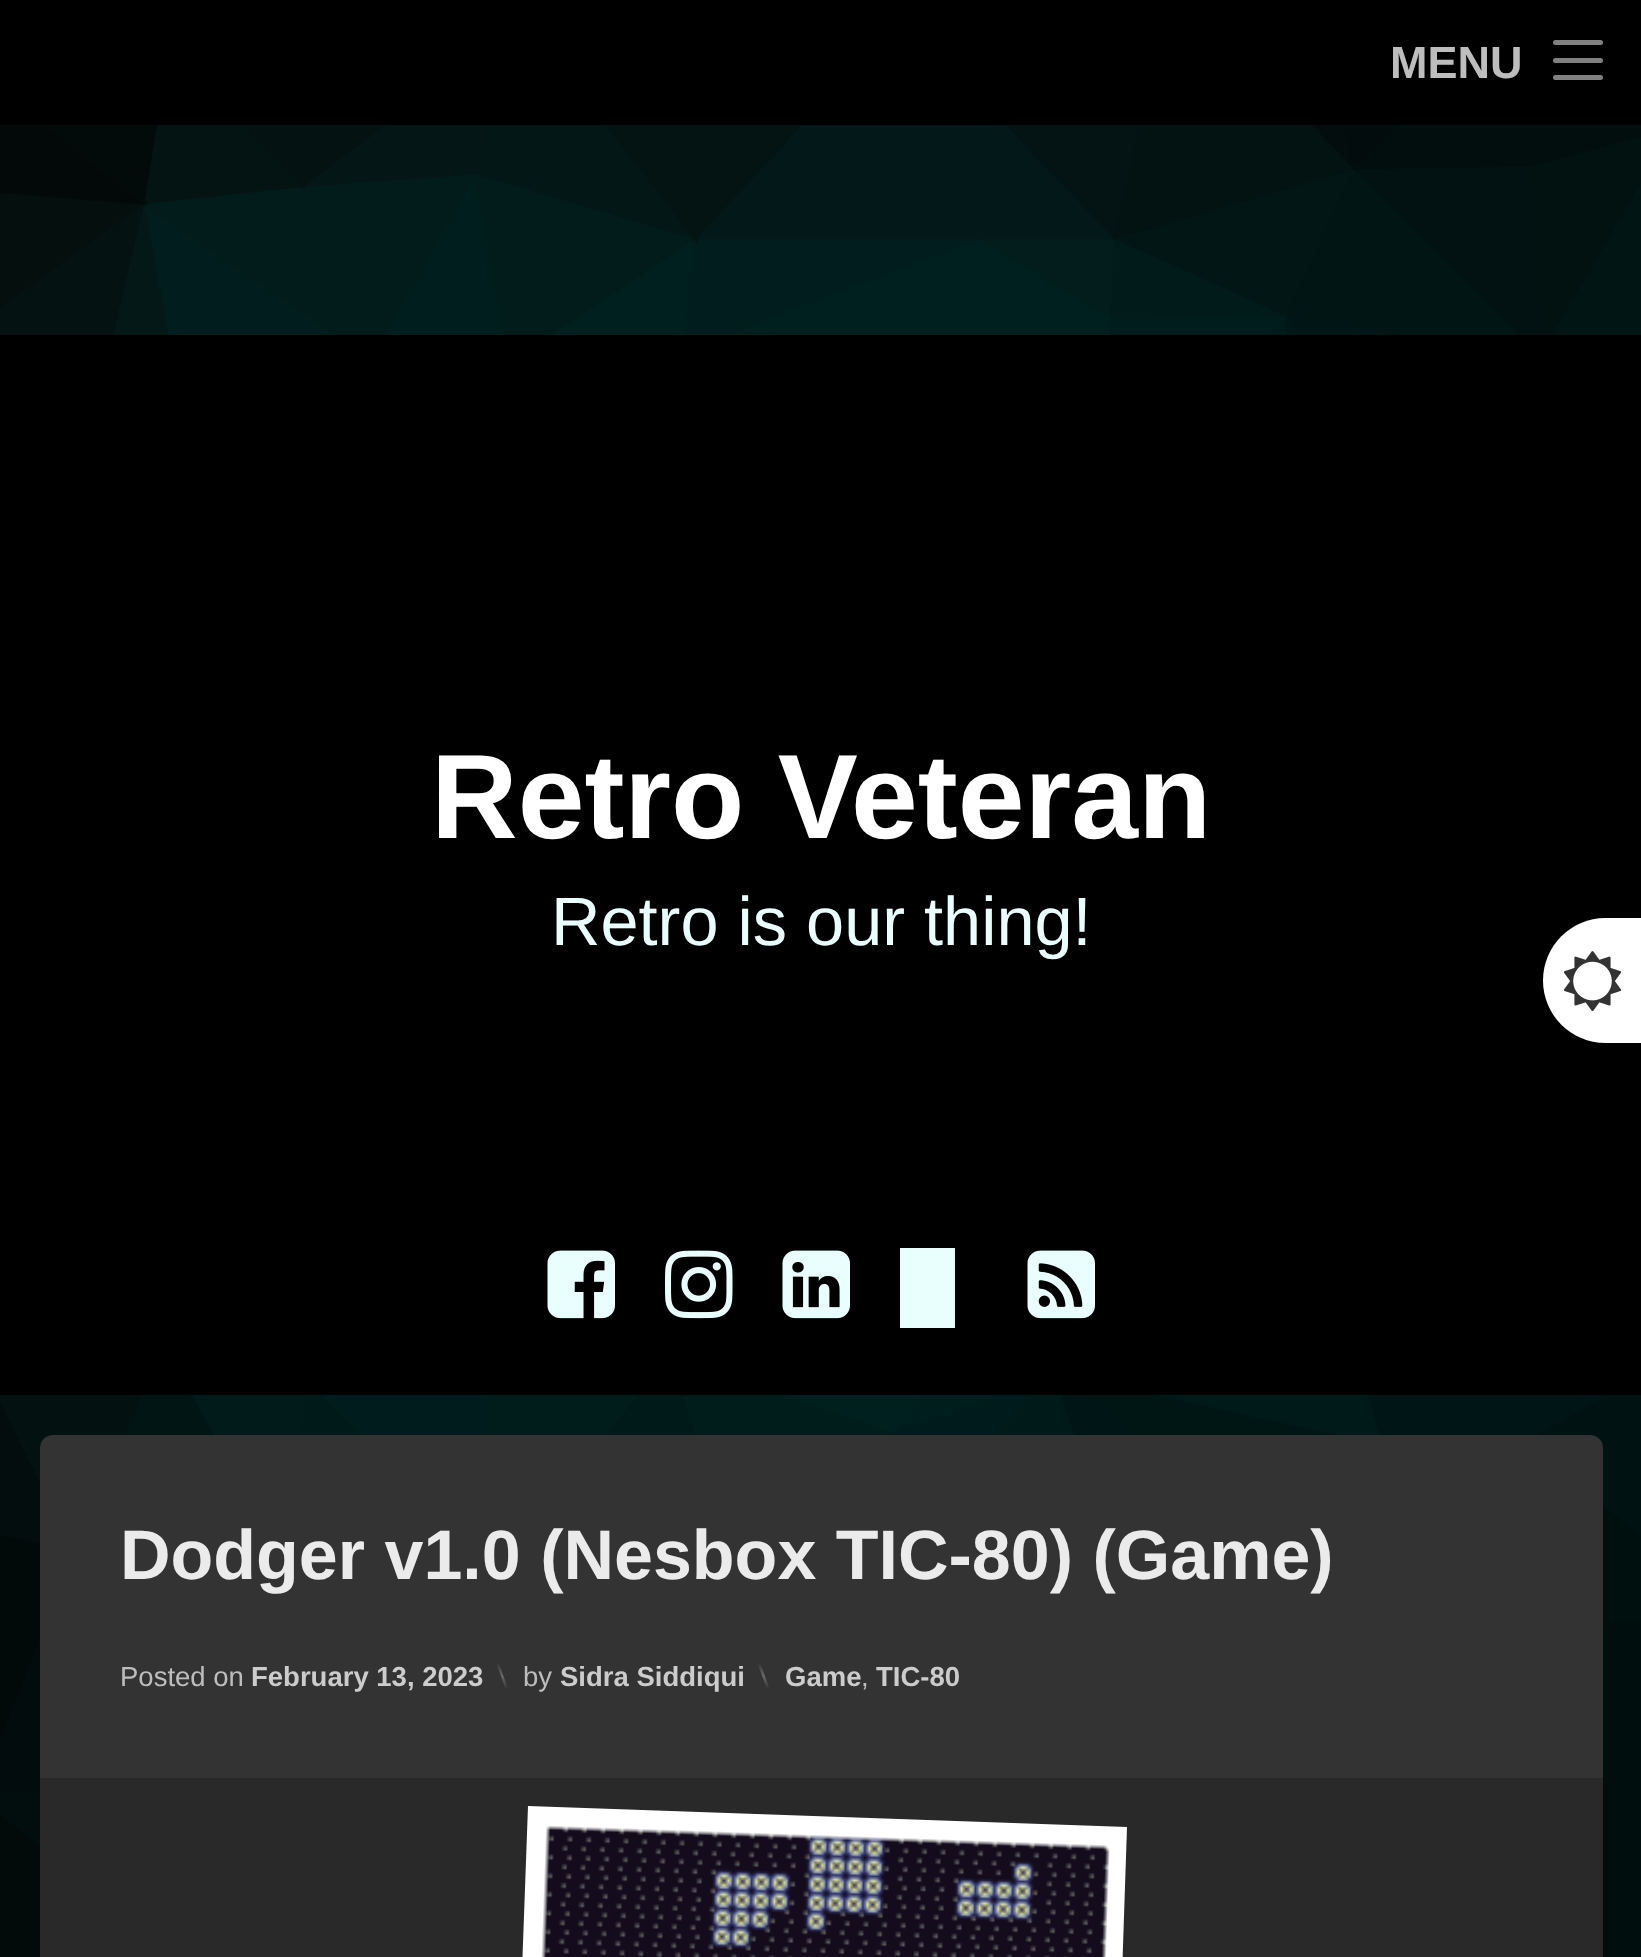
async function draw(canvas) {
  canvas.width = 1641
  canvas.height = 1957
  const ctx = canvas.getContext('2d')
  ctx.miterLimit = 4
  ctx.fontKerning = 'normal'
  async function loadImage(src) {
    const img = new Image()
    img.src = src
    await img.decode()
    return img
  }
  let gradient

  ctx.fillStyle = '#fff'
  ctx.fillRect(0, 0, 1641, 1957)
  ctx.fillStyle = '#000'
  ctx.fillRect(0, 0, 1641, 125)
  ctx.font = 'bold 45px Liberation Sans'
  ctx.fillStyle = '#bdbdbd'
  ctx.fillText('MENU', 1390, 78)
  ctx.fillStyle = '#808080'
  ctx.beginPath()
  ctx.roundRect(1553, 40, 50, 5, 2.5)
  ctx.fill()
  ctx.beginPath()
  ctx.roundRect(1553, 58, 50, 5, 2.5)
  ctx.fill()
  ctx.beginPath()
  ctx.roundRect(1553, 75, 50, 5, 2.5)
  ctx.fill()
  ctx.drawImage(await loadImage('image5.png'), 0, 125, 1641, 1832)
  ctx.fillStyle = '#000'
  ctx.fillRect(0, 335, 1641, 1060)
  ctx.font = 'bold 120px Liberation Sans'
  ctx.fillStyle = '#fff'
  ctx.fillText('Retro Veteran', 431, 838)
  ctx.font = '68.5px Liberation Sans'
  ctx.fillStyle = '#e8fffe'
  ctx.fillText('Retro is our thing!', 551, 945)
  ctx.drawImage(await loadImage('image0.png'), 547, 1250, 68, 69)
  ctx.drawImage(await loadImage('image1.png'), 665, 1250, 68, 69)
  ctx.drawImage(await loadImage('image2.png'), 782, 1250, 68, 69)
  ctx.save()
  ctx.beginPath()
  ctx.rect(900, 1248, 78, 80)
  ctx.clip()
  ctx.letterSpacing = '-2px'
  ctx.font = '79px Liberation Serif'
  ctx.fillText('█', 899, 1313)
  ctx.restore()
  ctx.drawImage(await loadImage('image3.png'), 1027, 1250, 68, 69)
  ctx.fillStyle = '#292929'
  ctx.beginPath()
  ctx.moveTo(65, 1435)
  ctx.lineTo(1578, 1435)
  ctx.bezierCurveTo(1592, 1435, 1603, 1446, 1603, 1460)
  ctx.lineTo(1603, 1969)
  ctx.bezierCurveTo(1603, 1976, 1597, 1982, 1590, 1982)
  ctx.lineTo(53, 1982)
  ctx.bezierCurveTo(46, 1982, 40, 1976, 40, 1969)
  ctx.lineTo(40, 1460)
  ctx.bezierCurveTo(40, 1446, 51, 1435, 65, 1435)
  ctx.closePath()
  ctx.fill()
  ctx.fillStyle = '#333'
  ctx.beginPath()
  ctx.roundRect(40, 1435, 1563, 343, [13, 13, 0, 0])
  ctx.fill()
  ctx.font = 'bold 70px Liberation Sans'
  ctx.fillStyle = '#ebebeb'
  ctx.fillText('Dodger v1.0 (Nesbox TIC-80) (Game)', 120, 1579)
  ctx.font = '27.5px Liberation Sans'
  ctx.fillStyle = '#bdbdbd'
  ctx.fillText('Posted on', 120, 1686)
  ctx.font = 'bold 27.5px Liberation Sans'
  ctx.fillStyle = '#ccc'
  ctx.fillText('February 13, 2023', 251, 1686)
  gradient = ctx.createLinearGradient(497, 1663, 507, 1689)
  gradient.addColorStop(0, '#333')
  gradient.addColorStop(0.5, '#6a6a6a')
  gradient.addColorStop(1, '#333')
  ctx.fillStyle = gradient
  ctx.beginPath()
  ctx.moveTo(496.5, 1663.5)
  ctx.lineTo(498.5, 1662.5)
  ctx.lineTo(508, 1688.5)
  ctx.lineTo(505.5, 1689)
  ctx.closePath()
  ctx.fill()
  ctx.font = '27.5px Liberation Sans'
  ctx.fillStyle = '#bdbdbd'
  ctx.fillText('by', 523, 1686)
  ctx.font = 'bold 27.5px Liberation Sans'
  ctx.fillStyle = '#ccc'
  ctx.fillText('Sidra Siddiqui', 560, 1686)
  gradient = ctx.createLinearGradient(759, 1663, 768, 1689)
  gradient.addColorStop(0, '#333')
  gradient.addColorStop(0.5, '#6a6a6a')
  gradient.addColorStop(1, '#333')
  ctx.fillStyle = gradient
  ctx.beginPath()
  ctx.moveTo(757.5, 1663.5)
  ctx.lineTo(760, 1662.5)
  ctx.lineTo(769.5, 1688.5)
  ctx.lineTo(767, 1689)
  ctx.closePath()
  ctx.fill()
  ctx.fillStyle = '#ccc'
  ctx.fillText('Game', 785, 1686)
  ctx.font = '27.5px Liberation Sans'
  ctx.fillStyle = '#bdbdbd'
  ctx.fillText(',', 861, 1686)
  ctx.font = 'bold 27.5px Liberation Sans'
  ctx.fillStyle = '#ccc'
  ctx.fillText('TIC-80', 876, 1686)
  ctx.fillStyle = '#fff'
  ctx.beginPath()
  ctx.moveTo(528, 1806)
  ctx.lineTo(1127, 1827)
  ctx.lineTo(1115, 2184)
  ctx.lineTo(515, 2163)
  ctx.closePath()
  ctx.fill()
  ctx.drawImage(await loadImage('image4.png'), 541, 1826, 569, 131)
  ctx.beginPath()
  ctx.moveTo(1605.5, 918)
  ctx.lineTo(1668, 918)
  ctx.lineTo(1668, 1043)
  ctx.lineTo(1605.5, 1043)
  ctx.bezierCurveTo(1571, 1043, 1543, 1015, 1543, 980.5)
  ctx.bezierCurveTo(1543, 946, 1571, 918, 1605.5, 918)
  ctx.closePath()
  ctx.fill()
  ctx.drawImage(await loadImage('image6.png'), 1563, 951, 59, 60)
}

draw(document.querySelector('canvas'))
